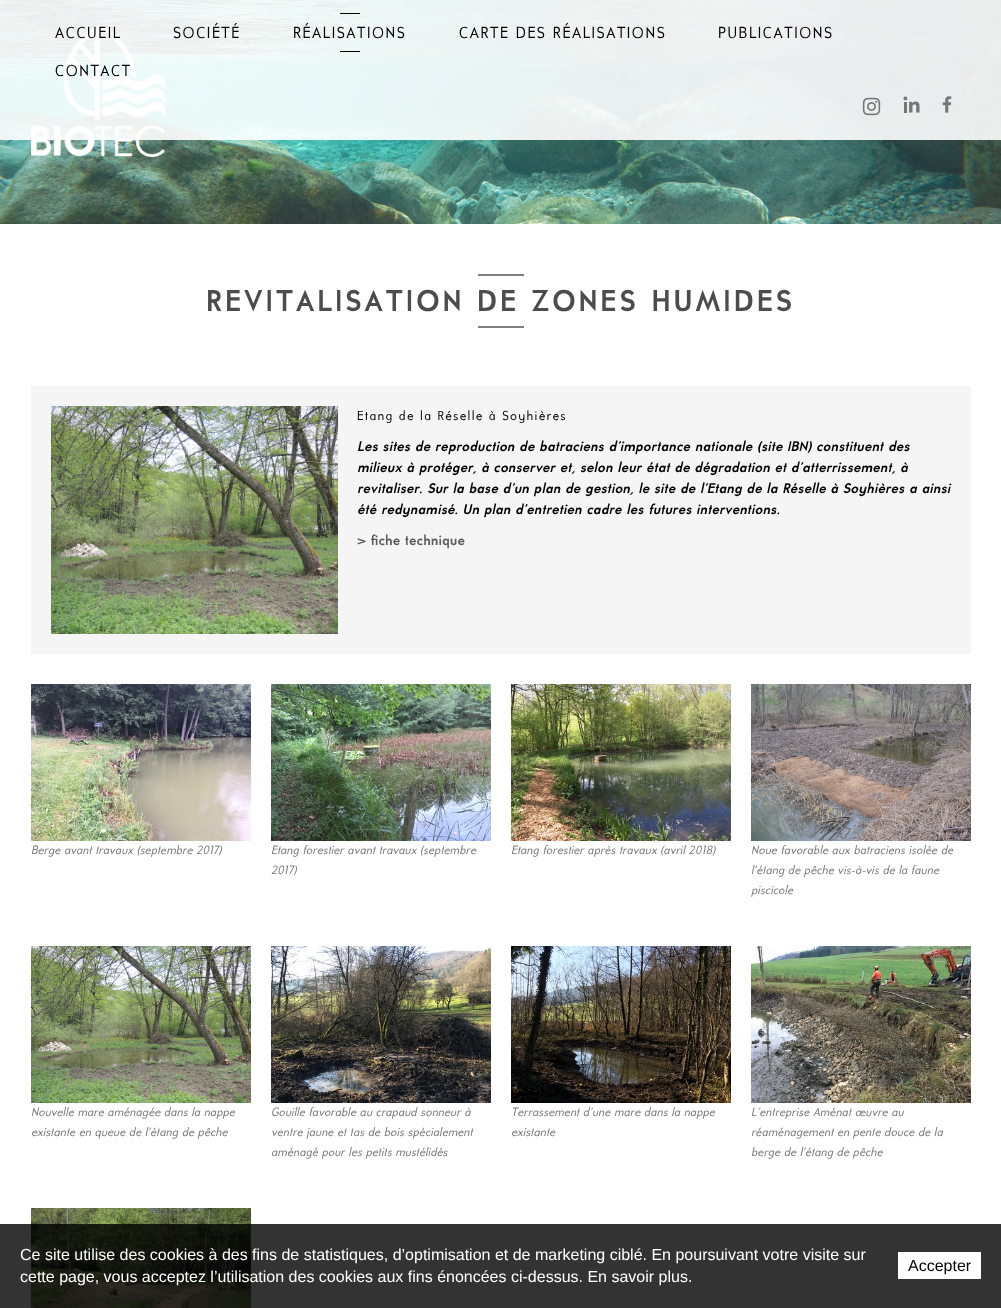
async function draw(canvas) {
  canvas.width = 1001
  canvas.height = 1308
  const ctx = canvas.getContext('2d')
  ctx.miterLimit = 4
  ctx.fontKerning = 'none'
  async function loadImage(src) {
    const img = new Image()
    img.src = src
    await img.decode()
    return img
  }

  ctx.fillStyle = '#fff'
  ctx.fillRect(0, 0, 1001, 1308)
  ctx.drawImage(await loadImage('image3.png'), 0, 0, 1001, 224)
  ctx.drawImage(await loadImage('image4.png'), 31, 25, 134, 132)
  ctx.fillStyle = '#ffffffe6'
  ctx.fillRect(0, 0, 1001, 140)
  ctx.letterSpacing = '1.6px'
  ctx.font = '16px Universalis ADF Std'
  ctx.fillStyle = '#000'
  ctx.fillText('ACCUEIL', 55, 38)
  ctx.fillText('SOCIÉTÉ', 173, 38)
  ctx.fillRect(340, 13, 20, 1)
  ctx.fillText('RÉALISATIONS', 293, 38)
  ctx.fillRect(340, 51, 20, 1)
  ctx.fillText('CARTE DES RÉALISATIONS', 459, 38)
  ctx.fillText('PUBLICATIONS', 718, 38)
  ctx.fillText('CONTACT', 55, 76)
  ctx.drawImage(await loadImage('image0.png'), 862, 97, 19, 19)
  ctx.drawImage(await loadImage('image1.png'), 903, 96, 17, 17)
  ctx.drawImage(await loadImage('image2.png'), 942, 96, 10, 17)
  ctx.fillStyle = '#7f7f7f'
  ctx.fillRect(478, 274, 46, 2)
  ctx.letterSpacing = '3px'
  ctx.font = 'bold 30px Universalis ADF Std'
  ctx.fillStyle = '#4c4c4c'
  ctx.fillText('REVITALISATION', 206, 311)
  ctx.fillText('DE ZONES HUMIDES', 477, 311)
  ctx.fillStyle = '#7f7f7f'
  ctx.fillRect(478, 326, 46, 2)
  ctx.fillStyle = '#f5f5f5'
  ctx.fillRect(31, 386, 940, 268)
  ctx.drawImage(await loadImage('image5.png'), 51, 406, 287, 228)
  ctx.letterSpacing = '1.3px'
  ctx.font = '13px Universalis ADF Std'
  ctx.fillStyle = '#000'
  ctx.fillText('Etang de la Réselle à Soyhières', 357, 420)
  ctx.letterSpacing = '0px'
  ctx.font = 'italic bold 14px Universalis ADF Std'
  ctx.fillText('Les sites de reproduction de batraciens d’importance nationale (site IBN) constituent des', 357, 451)
  ctx.fillText('milieux à protéger, à conserver et, selon leur état de dégradation et d’atterrissement,', 357, 472)
  ctx.fillText('à', 900, 472)
  ctx.fillText('revitaliser. Sur la base d’un plan de gestion, le site de l’Etang de la Réselle à Soyhières a ainsi', 357, 493)
  ctx.fillText('été redynamisé. Un plan d’entretien cadre les futures interventions.', 357, 514)
  ctx.font = 'bold 14px Universalis ADF Std'
  ctx.fillStyle = '#5c5c5c'
  ctx.fillText('> fiche technique', 357, 545)
  ctx.drawImage(await loadImage('image6.png'), 31, 684, 220, 157)
  ctx.font = 'italic 12px Universalis ADF Std'
  ctx.fillStyle = '#777'
  ctx.fillText('Berge avant travaux (septembre 2017)', 31, 854)
  ctx.drawImage(await loadImage('image7.png'), 271, 684, 220, 157)
  ctx.fillText('Etang forestier avant travaux (septembre', 271, 854)
  ctx.fillText('2017)', 271, 874)
  ctx.drawImage(await loadImage('image8.png'), 511, 684, 220, 157)
  ctx.fillText('Etang forestier après travaux (avril 2018)', 511, 854)
  ctx.drawImage(await loadImage('image9.png'), 751, 684, 220, 157)
  ctx.fillText('Noue favorable aux batraciens isolée de', 751, 854)
  ctx.fillText('l‘étang de pêche vis-à-vis de la faune', 751, 874)
  ctx.fillText('piscicole', 751, 894)
  ctx.drawImage(await loadImage('image10.png'), 31, 946, 220, 157)
  ctx.fillText('Nouvelle mare aménagée dans la nappe', 31, 1116)
  ctx.fillText('existante en queue de l‘étang de pêche', 31, 1136)
  ctx.drawImage(await loadImage('image11.png'), 271, 946, 220, 157)
  ctx.fillText('Gouille favorable au crapaud sonneur à', 271, 1116)
  ctx.fillText('ventre jaune et tas de bois spécialement', 271, 1136)
  ctx.fillText('aménagé pour les petits mustélidés', 271, 1156)
  ctx.drawImage(await loadImage('image12.png'), 511, 946, 220, 157)
  ctx.fillText('Terrassement d\'une mare dans la nappe', 511, 1116)
  ctx.fillText('existante', 511, 1136)
  ctx.drawImage(await loadImage('image13.png'), 751, 946, 220, 157)
  ctx.fillText('L\'entreprise Aménat oeuvre au', 751, 1116)
  ctx.fillText('réaménagement en pente douce de la', 751, 1136)
  ctx.fillText('berge de l\'étang de pêche', 751, 1156)
  ctx.drawImage(await loadImage('image14.png'), 31, 1208, 220, 100)
  ctx.fillStyle = '#000000cc'
  ctx.fillRect(0, 1224, 1001, 84)
  ctx.font = '16px Liberation Sans'
  ctx.fillStyle = '#fff'
  ctx.fillText('Ce site utilise des cookies à des fins de statistiques, d’optimisation et de marketing ciblé. En poursuivant votre visite sur', 20, 1260)
  ctx.fillText('cette page, vous acceptez l’utilisation des cookies aux fins énoncées ci-dessus. En savoir plus.', 20, 1282)
  ctx.fillRect(898, 1252, 83, 27)
  ctx.fillStyle = '#000'
  ctx.fillText('Accepter', 908, 1271)
}

draw(document.querySelector('canvas'))
